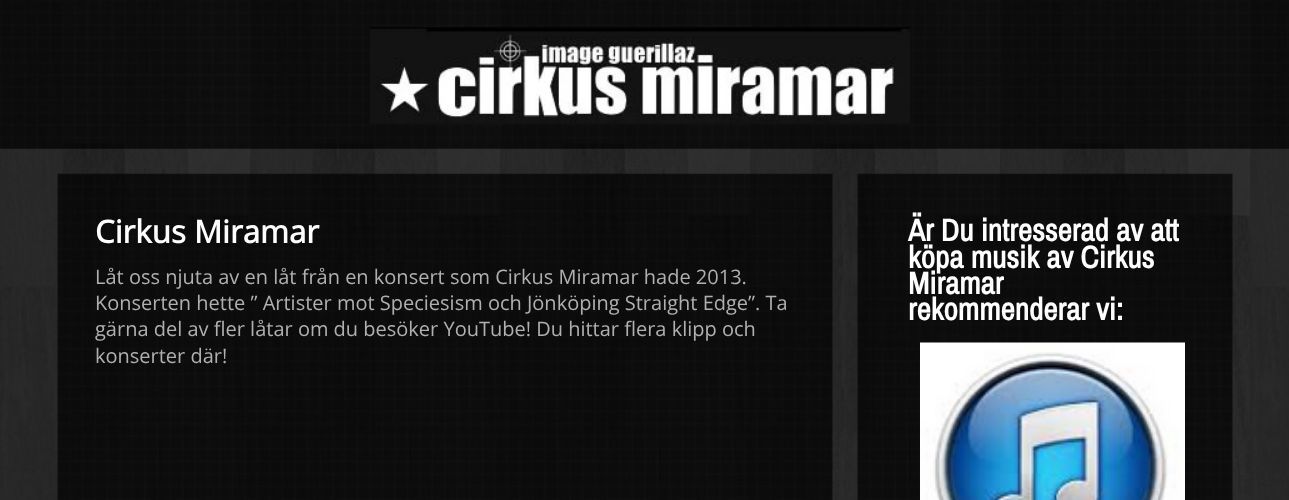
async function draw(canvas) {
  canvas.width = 1289
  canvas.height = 500
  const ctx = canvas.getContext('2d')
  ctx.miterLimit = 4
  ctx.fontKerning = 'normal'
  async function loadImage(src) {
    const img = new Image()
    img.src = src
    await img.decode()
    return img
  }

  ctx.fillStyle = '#fff'
  ctx.fillRect(0, 0, 1289, 500)
  ctx.drawImage(await loadImage('image0.png'), 0, 0, 1289, 500)
  ctx.drawImage(await loadImage('image1.png'), 0, 0, 1289, 149)
  ctx.drawImage(await loadImage('image2.png'), 370, 27, 540, 97)
  ctx.drawImage(await loadImage('image3.png'), 57, 173, 776, 327)
  ctx.font = 'bold 31.25px Open Sans'
  ctx.fillText('Cirkus Miramar', 95, 243)
  ctx.font = '20px Open Sans'
  ctx.fillStyle = '#b0b0b0'
  ctx.fillText('Låt oss njuta av en låt från en konsert som Cirkus Miramar hade 2013.', 95, 284)
  ctx.fillText('Konserten hette ” Artister mot Speciesism och Jönköping Straight Edge”. Ta', 95, 310)
  ctx.fillText('gärna del av fler låtar om du besöker YouTube! Du hittar flera klipp och', 95, 336)
  ctx.fillText('konserter där!', 95, 363)
  ctx.drawImage(await loadImage('image4.png'), 857, 173, 376, 327)
  ctx.font = 'bold 31.25px Archivo Narrow'
  ctx.fillStyle = '#fff'
  ctx.fillText('Är Du intresserad av att', 908, 241)
  ctx.fillText('köpa musik av Cirkus', 908, 268)
  ctx.fillText('Miramar', 908, 294)
  ctx.fillText('rekommenderar vi:', 908, 320)
  ctx.drawImage(await loadImage('image5.png'), 920, 342, 265, 158)
}

draw(document.querySelector('canvas'))
